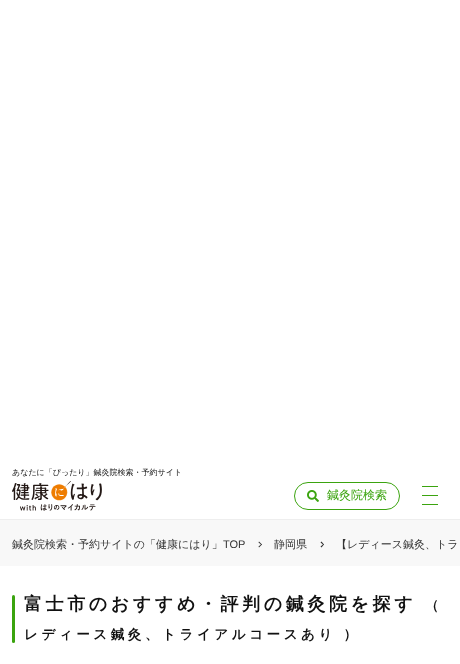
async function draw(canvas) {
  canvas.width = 460
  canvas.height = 664
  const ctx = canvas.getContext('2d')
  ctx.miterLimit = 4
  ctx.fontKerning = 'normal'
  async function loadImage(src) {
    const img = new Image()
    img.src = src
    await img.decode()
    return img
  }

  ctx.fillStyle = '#fff'
  ctx.fillRect(0, 0, 460, 664)
  ctx.fillStyle = '#eee'
  ctx.fillRect(0, 519, 460, 1)
  ctx.font = '500 8px WenQuanYi Zen Hei'
  ctx.fillStyle = '#111'
  ctx.fillText('あなたに「ぴったり」鍼灸院検索・予約サイト', 12, 475)
  ctx.drawImage(await loadImage('image0.png'), 12, 481, 90, 30)
  ctx.beginPath()
  ctx.roundRect(294.5, 482.5, 105, 27, 13.5)
  ctx.strokeStyle = '#3ba40f'
  ctx.stroke()
  ctx.drawImage(await loadImage('image1.png'), 307, 490, 12, 12)
  ctx.font = '500 12px WenQuanYi Zen Hei'
  ctx.fillStyle = '#3ba40f'
  ctx.fillText('鍼灸院検索', 327, 499)
  ctx.fillRect(422, 495, 16, 1)
  ctx.fillRect(422, 486, 16, 1)
  ctx.fillRect(422, 504, 16, 1)
  ctx.fillStyle = '#f8f8f8'
  ctx.fillRect(0, 520, 460, 46)
  ctx.font = '500 11px WenQuanYi Zen Hei'
  ctx.fillStyle = '#333'
  ctx.fillText('鍼灸院検索・予約サイトの「健康にはり」', 12, 548)
  ctx.font = '11px Liberation Sans'
  ctx.fillText('TOP', 223, 548)
  ctx.beginPath()
  ctx.moveTo(259, 541.5)
  ctx.lineTo(262, 544.5)
  ctx.lineTo(261.5, 545)
  ctx.lineTo(258.5, 542.5)
  ctx.closePath()
  ctx.fill()
  ctx.beginPath()
  ctx.moveTo(261.5, 544)
  ctx.lineTo(262, 544.5)
  ctx.lineTo(259, 547.5)
  ctx.lineTo(258.5, 546.5)
  ctx.closePath()
  ctx.fill()
  ctx.font = '500 11px WenQuanYi Zen Hei'
  ctx.fillText('静岡県', 274, 548)
  ctx.beginPath()
  ctx.moveTo(321.5, 541.5)
  ctx.lineTo(324, 544.5)
  ctx.lineTo(323.5, 545)
  ctx.lineTo(320.5, 542.5)
  ctx.closePath()
  ctx.fill()
  ctx.beginPath()
  ctx.moveTo(323.5, 544)
  ctx.lineTo(324, 544.5)
  ctx.lineTo(321.5, 547.5)
  ctx.lineTo(320.5, 546.5)
  ctx.closePath()
  ctx.fill()
  ctx.fillText('【レディース鍼灸、トラ', 336, 548)
  ctx.fillStyle = '#3ba40f'
  ctx.beginPath()
  ctx.roundRect(12, 595, 3, 48, 1.5)
  ctx.fill()
  ctx.letterSpacing = '3.6px'
  ctx.font = 'bold 18px WenQuanYi Zen Hei'
  ctx.fillStyle = '#111'
  ctx.fillText('富士市のおすすめ・評判の鍼灸院を探す', 24, 610)
  ctx.font = 'bold 13.5px WenQuanYi Zen Hei'
  ctx.fillText('（', 425, 610)
  ctx.fillText('レディース鍼灸、トライアルコースあり ）', 24, 639)
}

draw(document.querySelector('canvas'))
